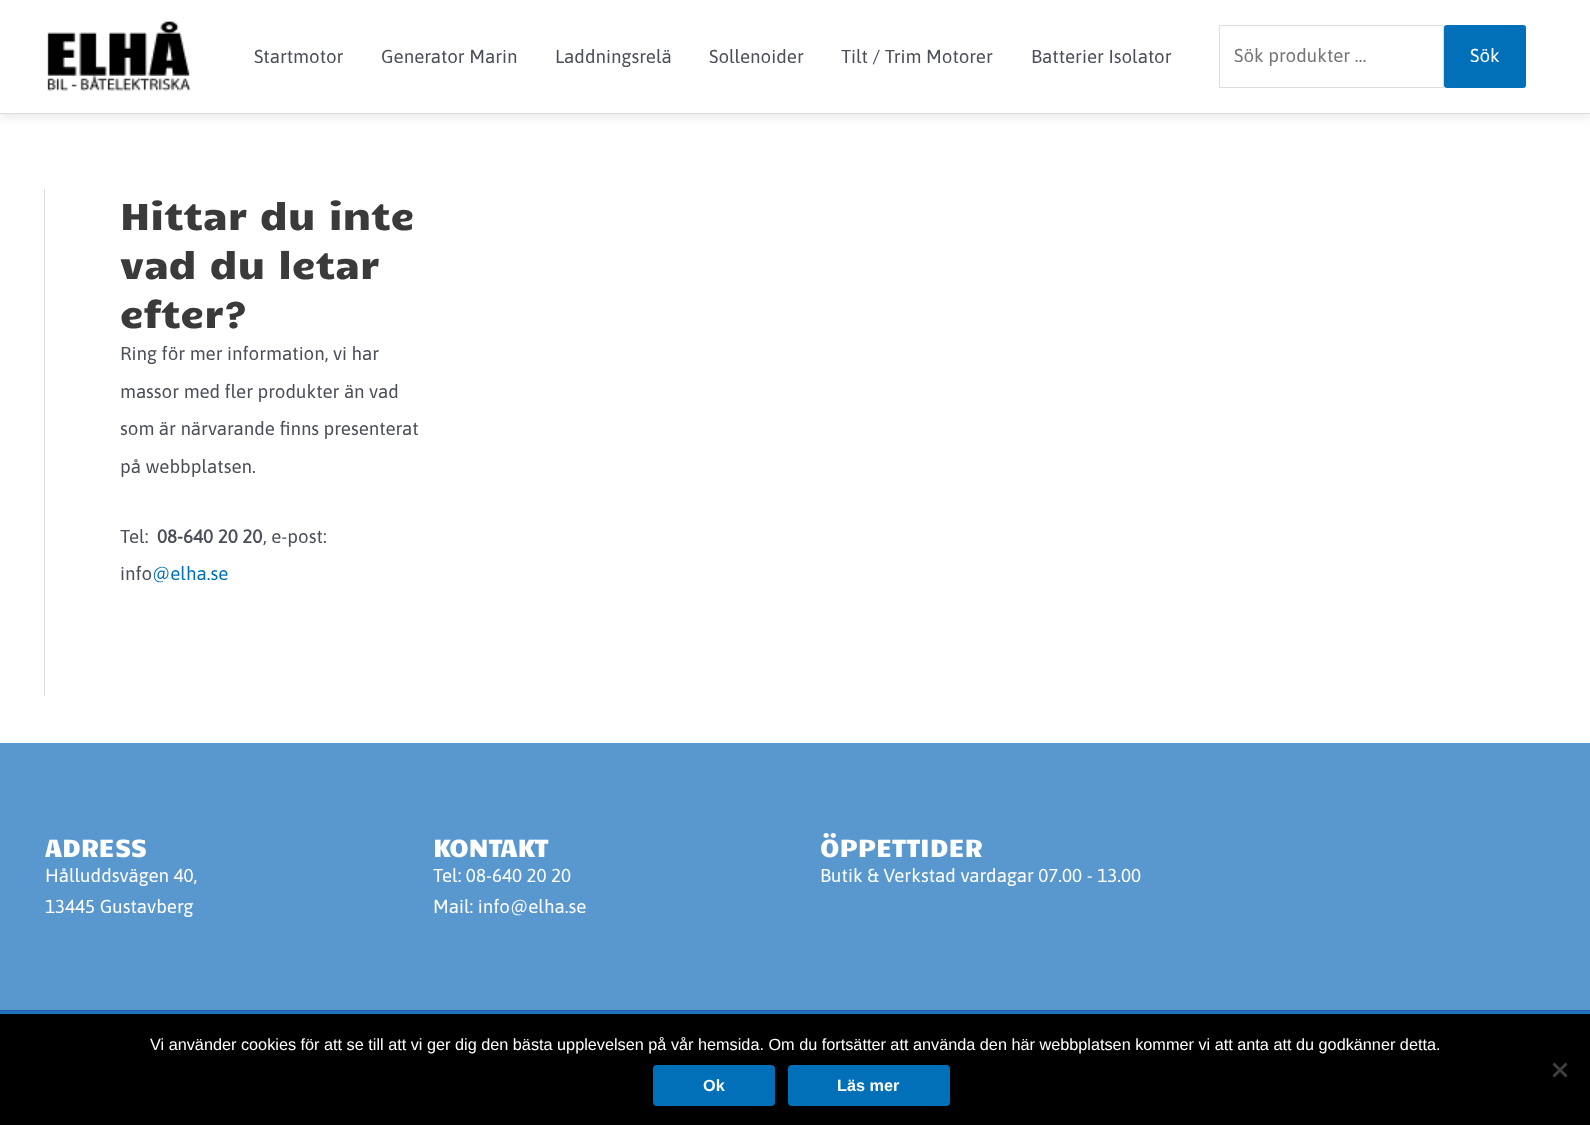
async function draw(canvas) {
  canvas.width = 1590
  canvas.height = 1125
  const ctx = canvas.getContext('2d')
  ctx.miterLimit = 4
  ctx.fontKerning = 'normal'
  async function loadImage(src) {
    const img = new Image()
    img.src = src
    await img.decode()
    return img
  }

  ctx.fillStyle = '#fff'
  ctx.fillRect(0, 0, 1590, 1125)
  ctx.fillStyle = '#0000001c'
  ctx.filter = 'blur(6px)'
  ctx.beginPath()
  ctx.rect(0, 3, 1590, 113)
  ctx.fill()
  ctx.filter = 'none'
  ctx.fillStyle = '#fff'
  ctx.fillRect(0, 0, 1590, 113)
  ctx.fillStyle = '#ddd'
  ctx.fillRect(0, 113, 1590, 1)
  ctx.drawImage(await loadImage('image0.png'), 47, 21, 144, 70)
  ctx.font = '18.75px Asap'
  ctx.fillStyle = '#4b4f58'
  ctx.fillText('Startmotor', 254, 63)
  ctx.fillText('Generator Marin', 381, 63)
  ctx.fillText('Laddningsrelä', 555, 63)
  ctx.fillText('Sollenoider', 709, 63)
  ctx.fillText('Tilt / Trim Motorer', 841, 63)
  ctx.fillText('Batterier Isolator', 1031, 63)
  ctx.strokeStyle = '#ddd'
  ctx.strokeRect(1219.5, 25.5, 224, 62)
  ctx.fillStyle = '#757575'
  ctx.fillText('Sök produkter …', 1234, 62)
  ctx.fillStyle = '#0170b9'
  ctx.beginPath()
  ctx.roundRect(1444.5, 25.5, 81, 62, 2)
  ctx.fill()
  ctx.strokeStyle = '#0170b9'
  ctx.stroke()
  ctx.fillStyle = '#fff'
  ctx.fillText('Sök', 1470, 62)
  ctx.fillStyle = '#ddd'
  ctx.fillRect(44, 189, 1, 507)
  ctx.font = '37.5px Candal'
  ctx.fillStyle = '#3a3a3a'
  ctx.fillText('Hittar du inte', 120, 230)
  ctx.fillText('vad du letar', 120, 279)
  ctx.fillText('efter?', 120, 328)
  ctx.font = '18.75px Asap'
  ctx.fillStyle = '#4b4f58'
  ctx.fillText('Ring för mer information, vi har', 120, 360)
  ctx.fillText('massor med fler produkter än vad', 120, 398)
  ctx.fillText('som är närvarande finns presenterat', 120, 435)
  ctx.fillText('på webbplatsen.', 120, 473)
  ctx.fillText('Tel:', 120, 543)
  ctx.font = 'bold 18.75px Asap'
  ctx.fillText('08-640 20 20', 157, 543)
  ctx.font = '18.75px Asap'
  ctx.fillText(', e-post:', 263, 543)
  ctx.fillText('info', 120, 580)
  ctx.fillStyle = '#0170b9'
  ctx.fillText('@elha.se', 152, 580)
  ctx.fillStyle = '#5998cf'
  ctx.fillRect(0, 743, 1590, 267)
  ctx.font = '25px Candal'
  ctx.fillStyle = '#fff'
  ctx.fillText('ADRESS', 45, 857)
  ctx.font = '18.75px Asap'
  ctx.fillText('Hålluddsvägen 40,', 45, 882)
  ctx.fillText('13445 Gustavberg', 45, 913)
  ctx.font = '25px Candal'
  ctx.fillText('KONTAKT', 433, 857)
  ctx.font = '18.75px Asap'
  ctx.fillText('Tel: 08-640 20 20', 433, 882)
  ctx.fillText('Mail: info@elha.se', 433, 913)
  ctx.font = '25px Candal'
  ctx.fillText('ÖPPETTIDER', 820, 857)
  ctx.font = '18.75px Asap'
  ctx.fillText('Butik & Verkstad vardagar 07.00 - 13.00', 820, 882)
  ctx.fillStyle = '#2b5aaf'
  ctx.fillRect(0, 1010, 1590, 1)
  ctx.fillStyle = '#1e73be'
  ctx.fillRect(0, 1011, 1590, 3)
  ctx.fillStyle = '#000'
  ctx.fillRect(0, 1014, 1590, 111)
  ctx.font = '16.25px Liberation Sans'
  ctx.fillStyle = '#fff'
  ctx.fillText('Vi använder cookies för att se till att vi ger dig den bästa upplevelsen på vår hemsida. Om du fortsätter att använda den här webbplatsen kommer vi att anta att du godkänner detta.', 150, 1050)
  ctx.fillStyle = '#404040'
  ctx.beginPath()
  ctx.moveTo(1565.5, 1062.5)
  ctx.lineTo(1567.5, 1064.5)
  ctx.lineTo(1554.5, 1077.5)
  ctx.lineTo(1552.5, 1075.5)
  ctx.closePath()
  ctx.fill()
  ctx.beginPath()
  ctx.moveTo(1552.5, 1064.5)
  ctx.lineTo(1554.5, 1062.5)
  ctx.lineTo(1567.5, 1075.5)
  ctx.lineTo(1565.5, 1077.5)
  ctx.closePath()
  ctx.fill()
  ctx.fillStyle = '#0170b9'
  ctx.beginPath()
  ctx.roundRect(653, 1065, 122, 41, 4)
  ctx.fill()
  ctx.font = 'bold 16.25px Liberation Sans'
  ctx.fillStyle = '#fff'
  ctx.fillText('Ok', 703, 1091)
  ctx.fillStyle = '#0170b9'
  ctx.beginPath()
  ctx.roundRect(788, 1065, 162, 41, 4)
  ctx.fill()
  ctx.fillStyle = '#fff'
  ctx.fillText('Läs mer', 837, 1091)
}

draw(document.querySelector('canvas'))
